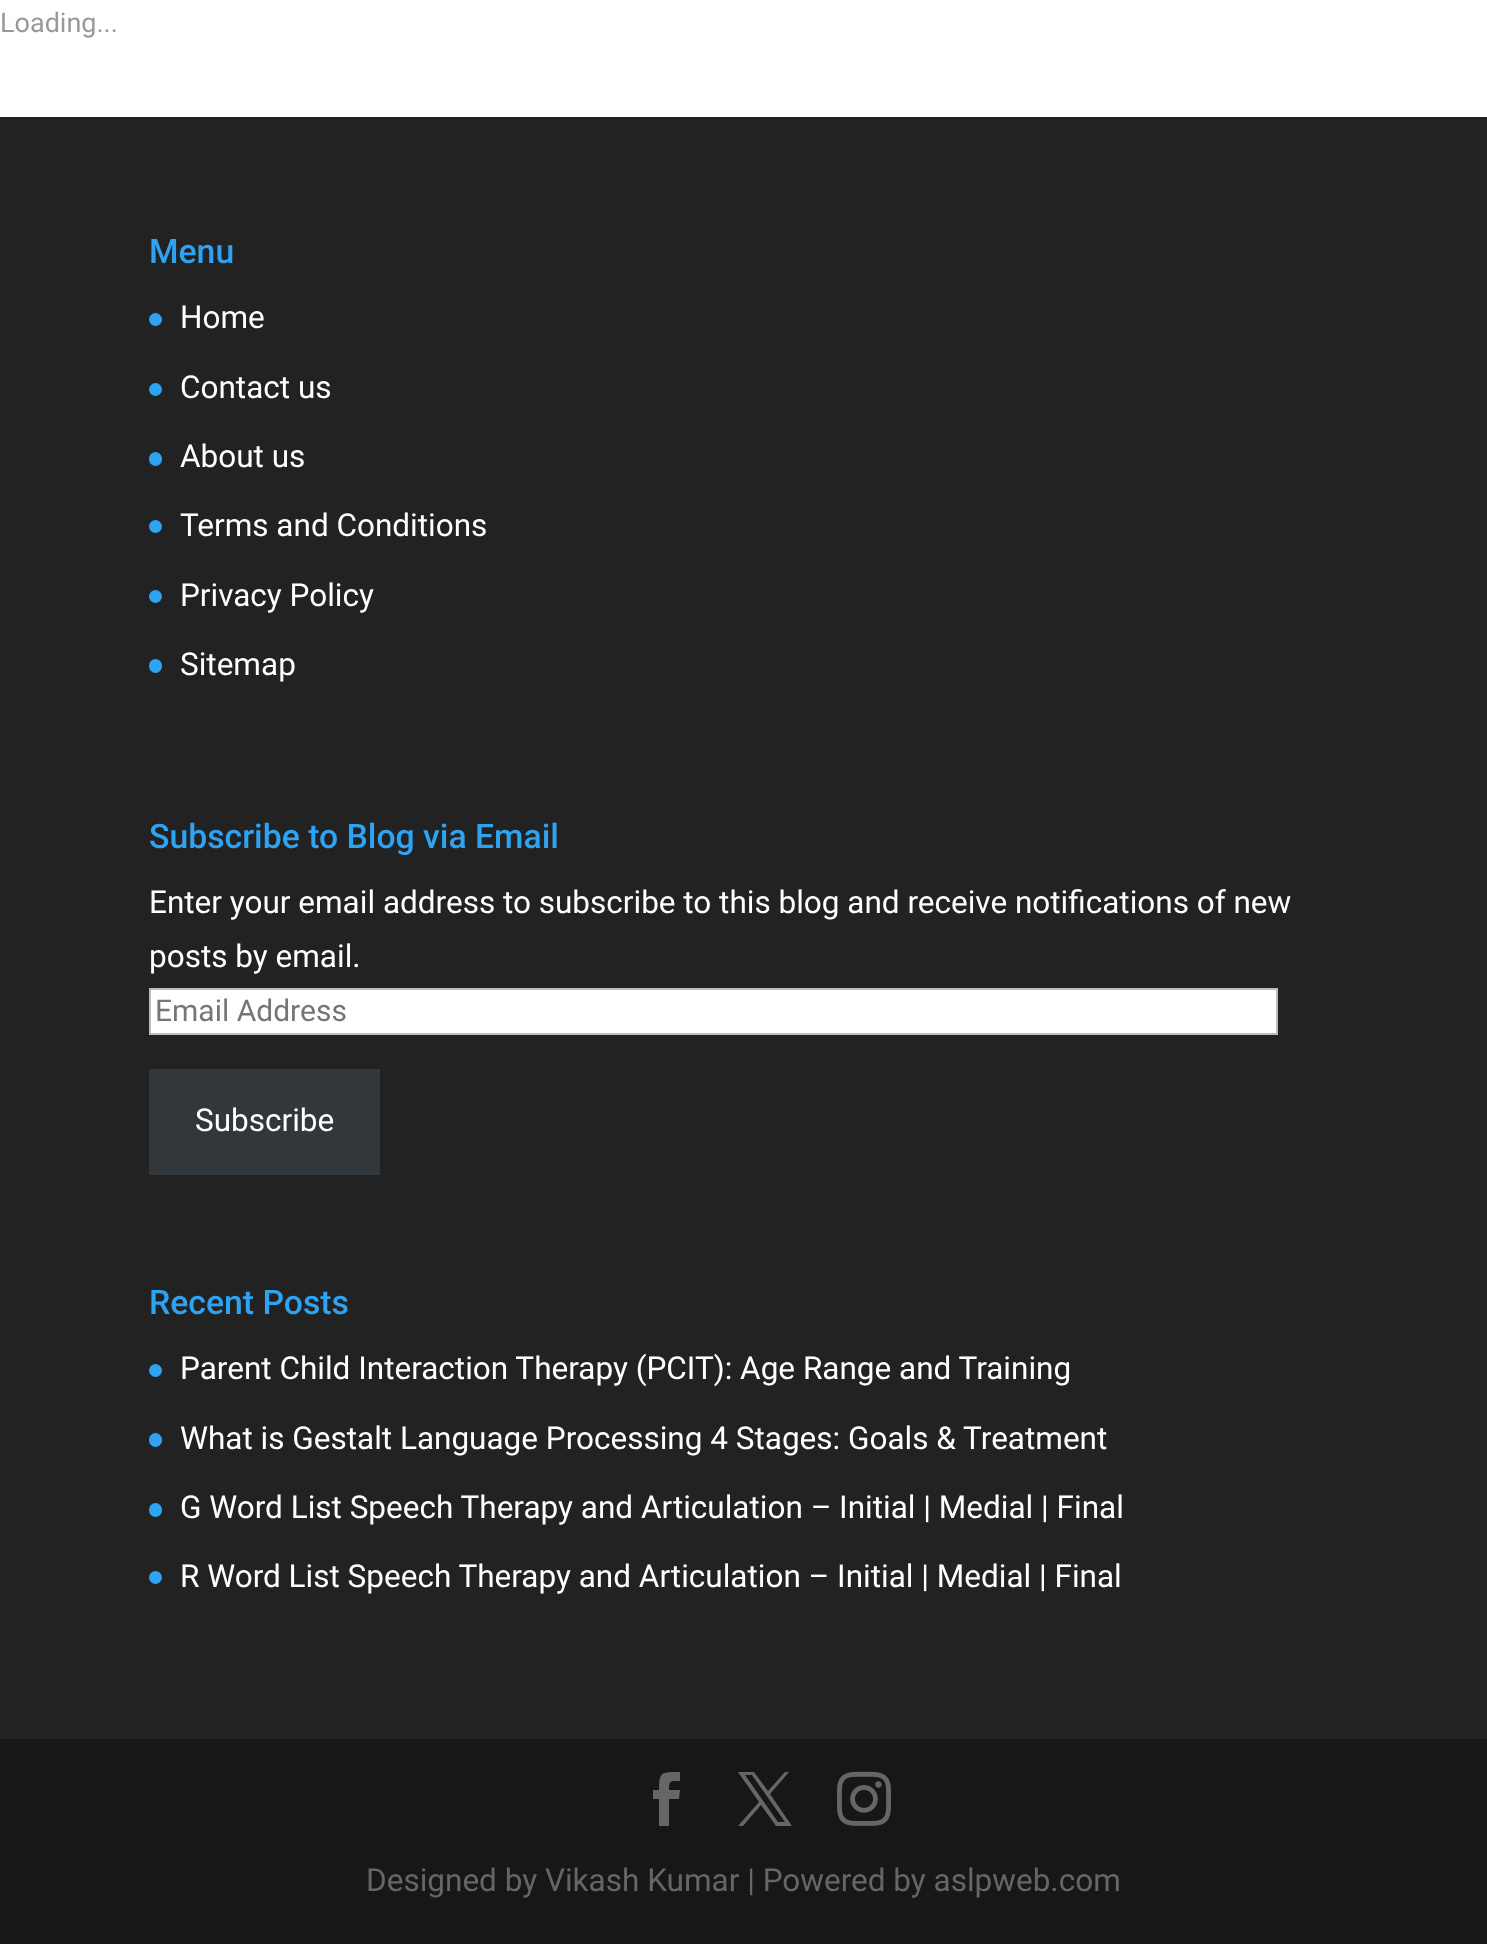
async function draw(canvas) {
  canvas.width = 1487
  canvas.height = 1944
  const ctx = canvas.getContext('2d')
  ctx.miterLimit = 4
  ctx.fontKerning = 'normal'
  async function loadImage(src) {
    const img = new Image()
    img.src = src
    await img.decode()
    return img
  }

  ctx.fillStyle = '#fff'
  ctx.fillRect(0, 0, 1487, 1944)
  ctx.font = '27px Roboto'
  ctx.fillStyle = '#999'
  ctx.fillText('Loading...', 0, 32)
  ctx.fillStyle = '#222'
  ctx.fillRect(0, 117, 1487, 1622)
  ctx.font = '500 33.75px Roboto'
  ctx.fillStyle = '#2ea3f2'
  ctx.fillText('Menu', 149, 263)
  ctx.beginPath()
  ctx.arc(155.5, 319.5, 6.5, 0, 2 * Math.PI)
  ctx.fill()
  ctx.font = '31.5px Roboto'
  ctx.fillStyle = '#fff'
  ctx.fillText('Home', 180, 328)
  ctx.fillStyle = '#2ea3f2'
  ctx.beginPath()
  ctx.arc(155.5, 389.5, 6.5, 0, 2 * Math.PI)
  ctx.fill()
  ctx.fillStyle = '#fff'
  ctx.fillText('Contact us', 180, 398)
  ctx.fillStyle = '#2ea3f2'
  ctx.beginPath()
  ctx.roundRect(149, 452, 13, 14, 6.5)
  ctx.fill()
  ctx.fillStyle = '#fff'
  ctx.fillText('About us', 180, 467)
  ctx.fillStyle = '#2ea3f2'
  ctx.beginPath()
  ctx.arc(155.5, 526.5, 6.5, 0, 2 * Math.PI)
  ctx.fill()
  ctx.fillStyle = '#fff'
  ctx.fillText('Terms and Conditions', 180, 536)
  ctx.fillStyle = '#2ea3f2'
  ctx.beginPath()
  ctx.arc(155.5, 596.5, 6.5, 0, 2 * Math.PI)
  ctx.fill()
  ctx.fillStyle = '#fff'
  ctx.fillText('Privacy Policy', 180, 606)
  ctx.fillStyle = '#2ea3f2'
  ctx.beginPath()
  ctx.roundRect(149, 659, 13, 14, 6.5)
  ctx.fill()
  ctx.fillStyle = '#fff'
  ctx.fillText('Sitemap', 180, 675)
  ctx.font = '500 33.75px Roboto'
  ctx.fillStyle = '#2ea3f2'
  ctx.fillText('Subscribe to Blog via Email', 149, 848)
  ctx.font = '31.5px Roboto'
  ctx.fillStyle = '#fff'
  ctx.fillText('Enter your email address to subscribe to this blog and receive notifications of new', 149, 913)
  ctx.fillText('posts by email.', 149, 967)
  ctx.beginPath()
  ctx.rect(150, 989, 1127, 45)
  ctx.fill()
  ctx.strokeStyle = '#bbb'
  ctx.lineWidth = 2
  ctx.stroke()
  ctx.font = '30px Roboto'
  ctx.fillStyle = '#757575'
  ctx.fillText('Email Address', 155, 1021)
  ctx.fillStyle = '#32373c'
  ctx.fillRect(149, 1069, 231, 106)
  ctx.font = '31.5px Roboto'
  ctx.fillStyle = '#fff'
  ctx.fillText('Subscribe', 195, 1131)
  ctx.font = '500 33.75px Roboto'
  ctx.fillStyle = '#2ea3f2'
  ctx.fillText('Recent Posts', 149, 1314)
  ctx.beginPath()
  ctx.arc(155.5, 1370.5, 6.5, 0, 2 * Math.PI)
  ctx.fill()
  ctx.font = '31.5px Roboto'
  ctx.fillStyle = '#fff'
  ctx.fillText('Parent Child Interaction Therapy (PCIT): Age Range and Training', 180, 1379)
  ctx.fillStyle = '#2ea3f2'
  ctx.beginPath()
  ctx.roundRect(149, 1433, 13, 14, 6.5)
  ctx.fill()
  ctx.fillStyle = '#fff'
  ctx.fillText('What is Gestalt Language Processing 4 Stages: Goals & Treatment', 180, 1449)
  ctx.fillStyle = '#2ea3f2'
  ctx.beginPath()
  ctx.roundRect(149, 1503, 13, 14, 6.5)
  ctx.fill()
  ctx.fillStyle = '#fff'
  ctx.fillText('G Word List Speech Therapy and Articulation – Initial | Medial | Final', 180, 1518)
  ctx.fillStyle = '#2ea3f2'
  ctx.beginPath()
  ctx.arc(155.5, 1577.5, 6.5, 0, 2 * Math.PI)
  ctx.fill()
  ctx.fillStyle = '#fff'
  ctx.fillText('R Word List Speech Therapy and Articulation – Initial | Medial | Final', 180, 1587)
  ctx.fillStyle = '#171717'
  ctx.fillRect(0, 1739, 1487, 205)
  ctx.fillStyle = '#666'
  ctx.beginPath()
  ctx.moveTo(659, 1826)
  ctx.lineTo(669, 1826)
  ctx.lineTo(669, 1799)
  ctx.lineTo(679, 1799)
  ctx.lineTo(680, 1790)
  ctx.lineTo(669, 1790)
  ctx.bezierCurveTo(669, 1780, 670, 1781, 680, 1781)
  ctx.lineTo(680, 1772)
  ctx.bezierCurveTo(662, 1772, 659, 1771, 659, 1790)
  ctx.lineTo(653, 1790)
  ctx.lineTo(653, 1799)
  ctx.lineTo(659, 1799)
  ctx.closePath()
  ctx.fill()
  ctx.beginPath()
  ctx.moveTo(738, 1772)
  ctx.lineTo(759, 1802)
  ctx.lineTo(738, 1826)
  ctx.lineTo(743, 1826)
  ctx.lineTo(761, 1805)
  ctx.lineTo(776, 1826)
  ctx.lineTo(792, 1826)
  ctx.lineTo(770, 1794)
  ctx.lineTo(789, 1772)
  ctx.lineTo(785, 1772)
  ctx.lineTo(768, 1791)
  ctx.lineTo(754, 1772)
  ctx.closePath()
  ctx.moveTo(745, 1775)
  ctx.lineTo(752, 1775)
  ctx.lineTo(785, 1822)
  ctx.lineTo(778, 1822)
  ctx.closePath()
  ctx.fill()
  ctx.drawImage(await loadImage('image0.png'), 837, 1771, 54, 55)
  ctx.fillText('Designed by Vikash Kumar | Powered by aslpweb.com', 366, 1891)
}

draw(document.querySelector('canvas'))
